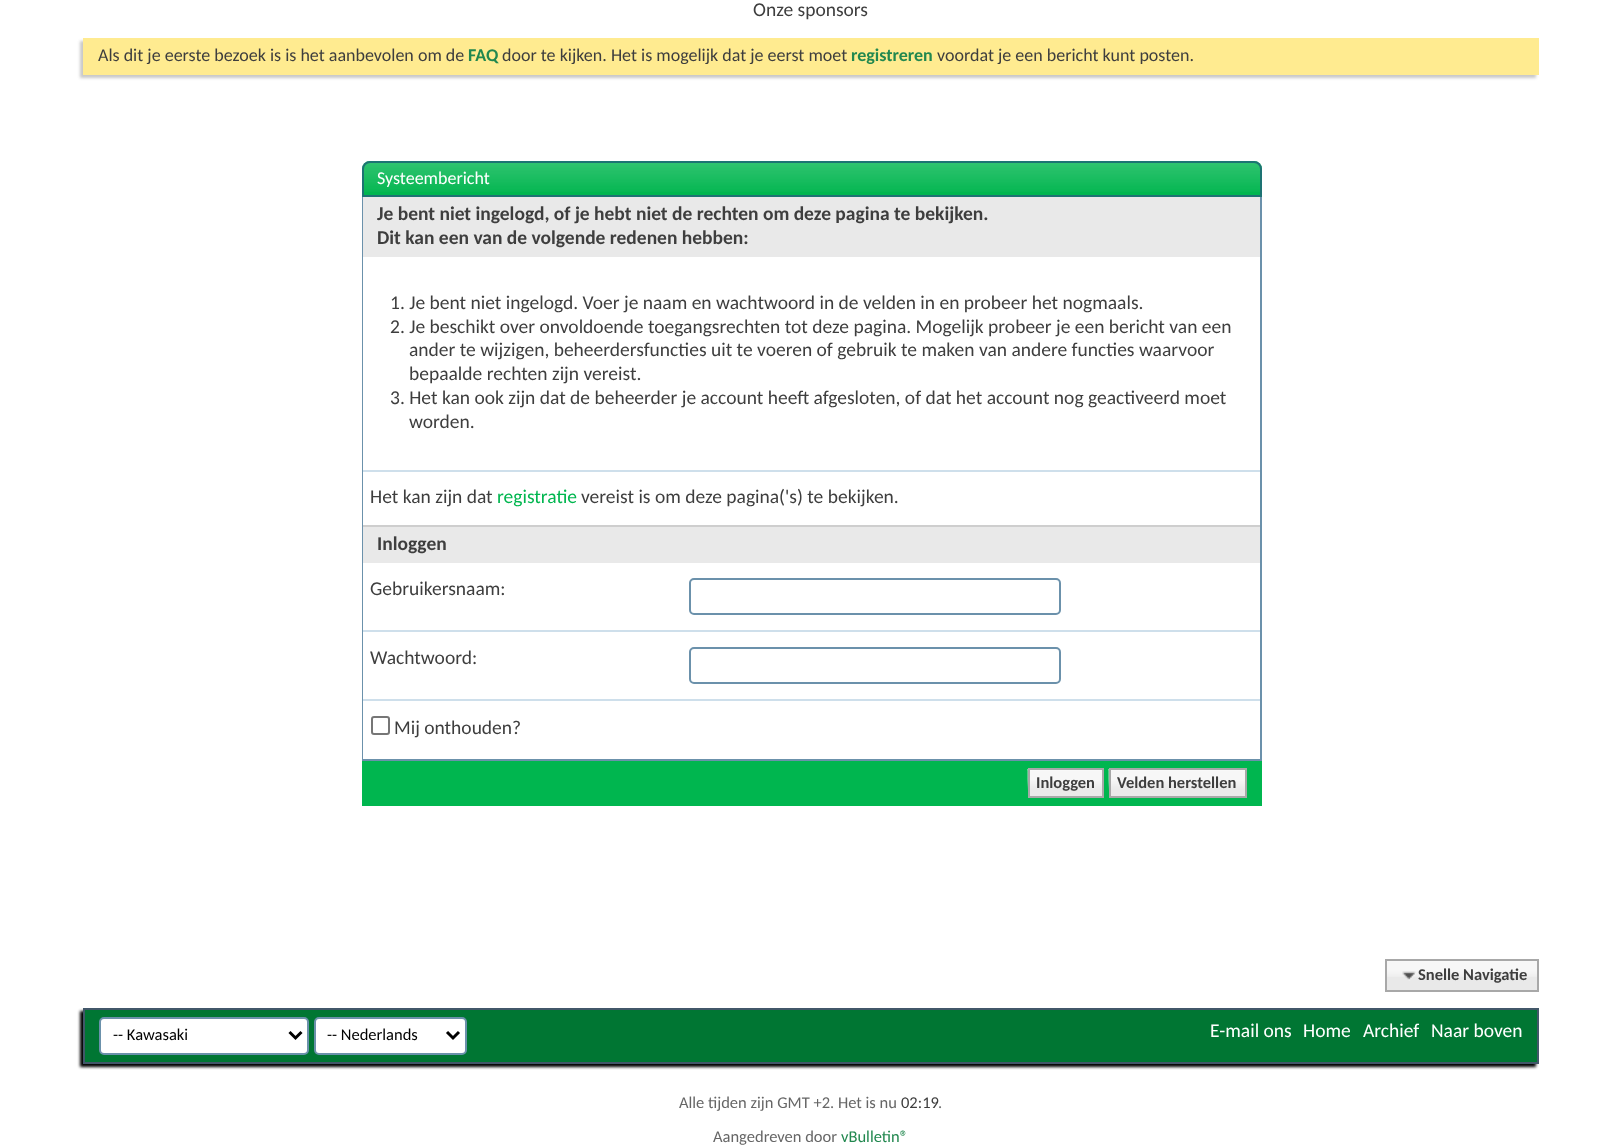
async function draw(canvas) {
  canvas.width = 1621
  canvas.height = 1146
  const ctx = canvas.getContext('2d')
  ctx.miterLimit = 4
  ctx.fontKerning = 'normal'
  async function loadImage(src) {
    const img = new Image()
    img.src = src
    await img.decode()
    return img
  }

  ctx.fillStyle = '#fff'
  ctx.fillRect(0, 0, 1621, 1146)
  ctx.font = '19.5px Carlito'
  ctx.fillStyle = '#3e3e3e'
  ctx.fillText('Onze sponsors', 753, 16)
  ctx.fillStyle = '#c8c8c8'
  ctx.filter = 'blur(1.5px)'
  ctx.beginPath()
  ctx.rect(80, 41, 1456, 37)
  ctx.fill()
  ctx.filter = 'none'
  ctx.fillStyle = '#ffeb90'
  ctx.fillRect(83, 38, 1456, 37)
  ctx.font = '18px Carlito'
  ctx.fillStyle = '#3e3e3e'
  ctx.fillText('Als dit je eerste bezoek is is het aanbevolen om de', 98, 61)
  ctx.font = 'bold 18px Carlito'
  ctx.fillStyle = '#22884f'
  ctx.fillText('FAQ', 468, 61)
  ctx.font = '18px Carlito'
  ctx.fillStyle = '#3e3e3e'
  ctx.fillText('door te kijken. Het is mogelijk dat je eerst moet', 502, 61)
  ctx.font = 'bold 18px Carlito'
  ctx.fillStyle = '#22884f'
  ctx.fillText('registreren', 851, 61)
  ctx.font = '18px Carlito'
  ctx.fillStyle = '#3e3e3e'
  ctx.fillText('voordat je een bericht kunt posten.', 937, 61)
  ctx.fillStyle = '#00b64f'
  ctx.beginPath()
  ctx.roundRect(362, 161, 900, 36, [8, 8, 0, 0])
  ctx.fill()
  ctx.drawImage(await loadImage('image0.png'), 362, 161, 900, 31)
  ctx.beginPath()
  ctx.roundRect(363, 162, 898, 34, [7, 7, 0, 0])
  ctx.strokeStyle = '#1d7373'
  ctx.lineWidth = 2
  ctx.stroke()
  ctx.fillStyle = '#fff'
  ctx.fillText('Systeembericht', 377, 184)
  ctx.fillStyle = '#6b91ab'
  ctx.fillRect(1260, 197, 2, 564)
  ctx.fillRect(362, 759, 900, 2)
  ctx.fillRect(362, 197, 2, 564)
  ctx.fillStyle = '#e9e9e9'
  ctx.fillRect(363, 197, 897, 60)
  ctx.font = 'bold 19.5px Carlito'
  ctx.fillStyle = '#3e3e3e'
  ctx.fillText('Je bent niet ingelogd, of je hebt niet de rechten om deze pagina te bekijken.', 377, 220)
  ctx.fillText('Dit kan een van de volgende redenen hebben:', 377, 244)
  ctx.fillStyle = '#fff'
  ctx.fillRect(363, 257, 1, 213)
  ctx.font = '19.5px Carlito'
  ctx.fillStyle = '#3e3e3e'
  ctx.fillText('1. Je bent niet ingelogd. Voer je naam en wachtwoord in de velden in en probeer het nogmaals.', 390, 309)
  ctx.fillText('2. Je beschikt over onvoldoende toegangsrechten tot deze pagina. Mogelijk probeer je een bericht van een', 390, 333)
  ctx.fillText('ander te wijzigen, beheerdersfuncties uit te voeren of gebruik te maken van andere functies waarvoor', 409, 356)
  ctx.fillText('bepaalde rechten zijn vereist.', 409, 380)
  ctx.fillText('3. Het kan ook zijn dat de beheerder je account heeft afgesloten, of dat het account nog geactiveerd moet', 390, 404)
  ctx.fillText('worden.', 409, 428)
  ctx.fillStyle = '#fff'
  ctx.fillRect(363, 472, 1, 53)
  ctx.fillStyle = '#cedfeb'
  ctx.fillRect(363, 470, 897, 2)
  ctx.fillStyle = '#3e3e3e'
  ctx.fillText('Het kan zijn dat', 370, 503)
  ctx.fillStyle = '#00b64f'
  ctx.fillText('registratie', 497, 503)
  ctx.fillStyle = '#3e3e3e'
  ctx.fillText('vereist is om deze pagina(\'s) te bekijken.', 581, 503)
  ctx.fillStyle = '#e9e9e9'
  ctx.fillRect(363, 527, 897, 36)
  ctx.fillStyle = '#cecece'
  ctx.fillRect(363, 525, 897, 2)
  ctx.font = 'bold 19.5px Carlito'
  ctx.fillStyle = '#3e3e3e'
  ctx.fillText('Inloggen', 377, 550)
  ctx.fillStyle = '#fff'
  ctx.fillRect(363, 563, 1, 67)
  ctx.font = '19.5px Carlito'
  ctx.fillStyle = '#3e3e3e'
  ctx.fillText('Gebruikersnaam:', 370, 595)
  ctx.beginPath()
  ctx.roundRect(690, 579, 370, 35, 4)
  ctx.strokeStyle = '#6b91ab'
  ctx.stroke()
  ctx.fillStyle = '#fff'
  ctx.fillRect(363, 632, 1, 67)
  ctx.fillStyle = '#cedfeb'
  ctx.fillRect(363, 630, 897, 2)
  ctx.fillStyle = '#3e3e3e'
  ctx.fillText('Wachtwoord:', 370, 664)
  ctx.beginPath()
  ctx.roundRect(690, 648, 370, 35, 4)
  ctx.stroke()
  ctx.fillStyle = '#fff'
  ctx.fillRect(363, 701, 1, 58)
  ctx.fillStyle = '#cedfeb'
  ctx.fillRect(363, 699, 897, 2)
  ctx.beginPath()
  ctx.roundRect(372, 717, 17, 17, 2)
  ctx.strokeStyle = '#767676'
  ctx.stroke()
  ctx.fillStyle = '#3e3e3e'
  ctx.fillText('Mij onthouden?', 394, 734)
  ctx.fillStyle = '#00b64f'
  ctx.fillRect(362, 761, 900, 45)
  ctx.fillStyle = '#e9e9e9'
  ctx.fillRect(1030, 770, 72, 26)
  ctx.drawImage(await loadImage('image1.png'), 1027, 769, 75, 21)
  ctx.strokeStyle = '#a8a8a8'
  ctx.strokeRect(1029, 769, 74, 28)
  ctx.font = 'bold 16.5px Carlito'
  ctx.fillStyle = '#3e3e3e'
  ctx.fillText('Inloggen', 1036, 788)
  ctx.fillStyle = '#e9e9e9'
  ctx.fillRect(1111, 770, 134, 26)
  ctx.drawImage(await loadImage('image2.png'), 1108, 769, 137, 21)
  ctx.strokeRect(1110, 769, 136, 28)
  ctx.fillStyle = '#3e3e3e'
  ctx.fillText('Velden herstellen', 1117, 788)
  ctx.fillStyle = '#e9e9e9'
  ctx.fillRect(1387, 961, 150, 29)
  ctx.drawImage(await loadImage('image3.png'), 1387, 961, 150, 16)
  ctx.strokeRect(1386, 960, 152, 31)
  ctx.drawImage(await loadImage('image4.png'), 1402, 971, 14, 10)
  ctx.fillStyle = '#3e3e3e'
  ctx.fillText('Snelle Navigatie', 1418, 980)
  ctx.fillStyle = '#000'
  ctx.filter = 'blur(1.5px)'
  ctx.beginPath()
  ctx.rect(80, 1011, 1456, 56)
  ctx.fill()
  ctx.filter = 'none'
  ctx.fillStyle = '#007633'
  ctx.beginPath()
  ctx.rect(84, 1009, 1454, 54)
  ctx.fill()
  ctx.strokeStyle = '#425769'
  ctx.stroke()
  ctx.fillStyle = '#fff'
  ctx.beginPath()
  ctx.roundRect(100, 1018, 208, 36, 4)
  ctx.fill()
  ctx.strokeStyle = '#6b91ab'
  ctx.stroke()
  ctx.beginPath()
  ctx.moveTo(289.5, 1032)
  ctx.lineTo(295.5, 1038)
  ctx.lineTo(301.5, 1032)
  ctx.strokeStyle = '#000'
  ctx.lineWidth = 3
  ctx.stroke()
  ctx.font = '16.5px Carlito'
  ctx.fillStyle = '#000'
  ctx.fillText('-- Kawasaki', 113, 1040)
  ctx.fillStyle = '#fff'
  ctx.beginPath()
  ctx.roundRect(315, 1018, 151, 36, 4)
  ctx.fill()
  ctx.strokeStyle = '#6b91ab'
  ctx.lineWidth = 2
  ctx.stroke()
  ctx.beginPath()
  ctx.moveTo(447, 1032)
  ctx.lineTo(453, 1038)
  ctx.lineTo(459, 1032)
  ctx.strokeStyle = '#000'
  ctx.lineWidth = 3
  ctx.stroke()
  ctx.fillStyle = '#000'
  ctx.fillText('-- Nederlands', 327, 1040)
  ctx.font = '19.5px Carlito'
  ctx.fillStyle = '#fff'
  ctx.fillText('E-mail ons', 1210, 1037)
  ctx.fillText('Home', 1303, 1037)
  ctx.fillText('Archief', 1363, 1037)
  ctx.fillText('Naar boven', 1431, 1037)
  ctx.font = '16.5px Carlito'
  ctx.fillStyle = '#666'
  ctx.fillText('Alle tijden zijn GMT +2. Het is nu', 679, 1108)
  ctx.fillStyle = '#3e3e3e'
  ctx.fillText('02:19', 901, 1108)
  ctx.fillStyle = '#666'
  ctx.fillText('.', 938, 1108)
  ctx.fillText('Aangedreven door', 713, 1142)
  ctx.fillStyle = '#22884f'
  ctx.fillText('vBulletin®', 841, 1142)
}

draw(document.querySelector('canvas'))
